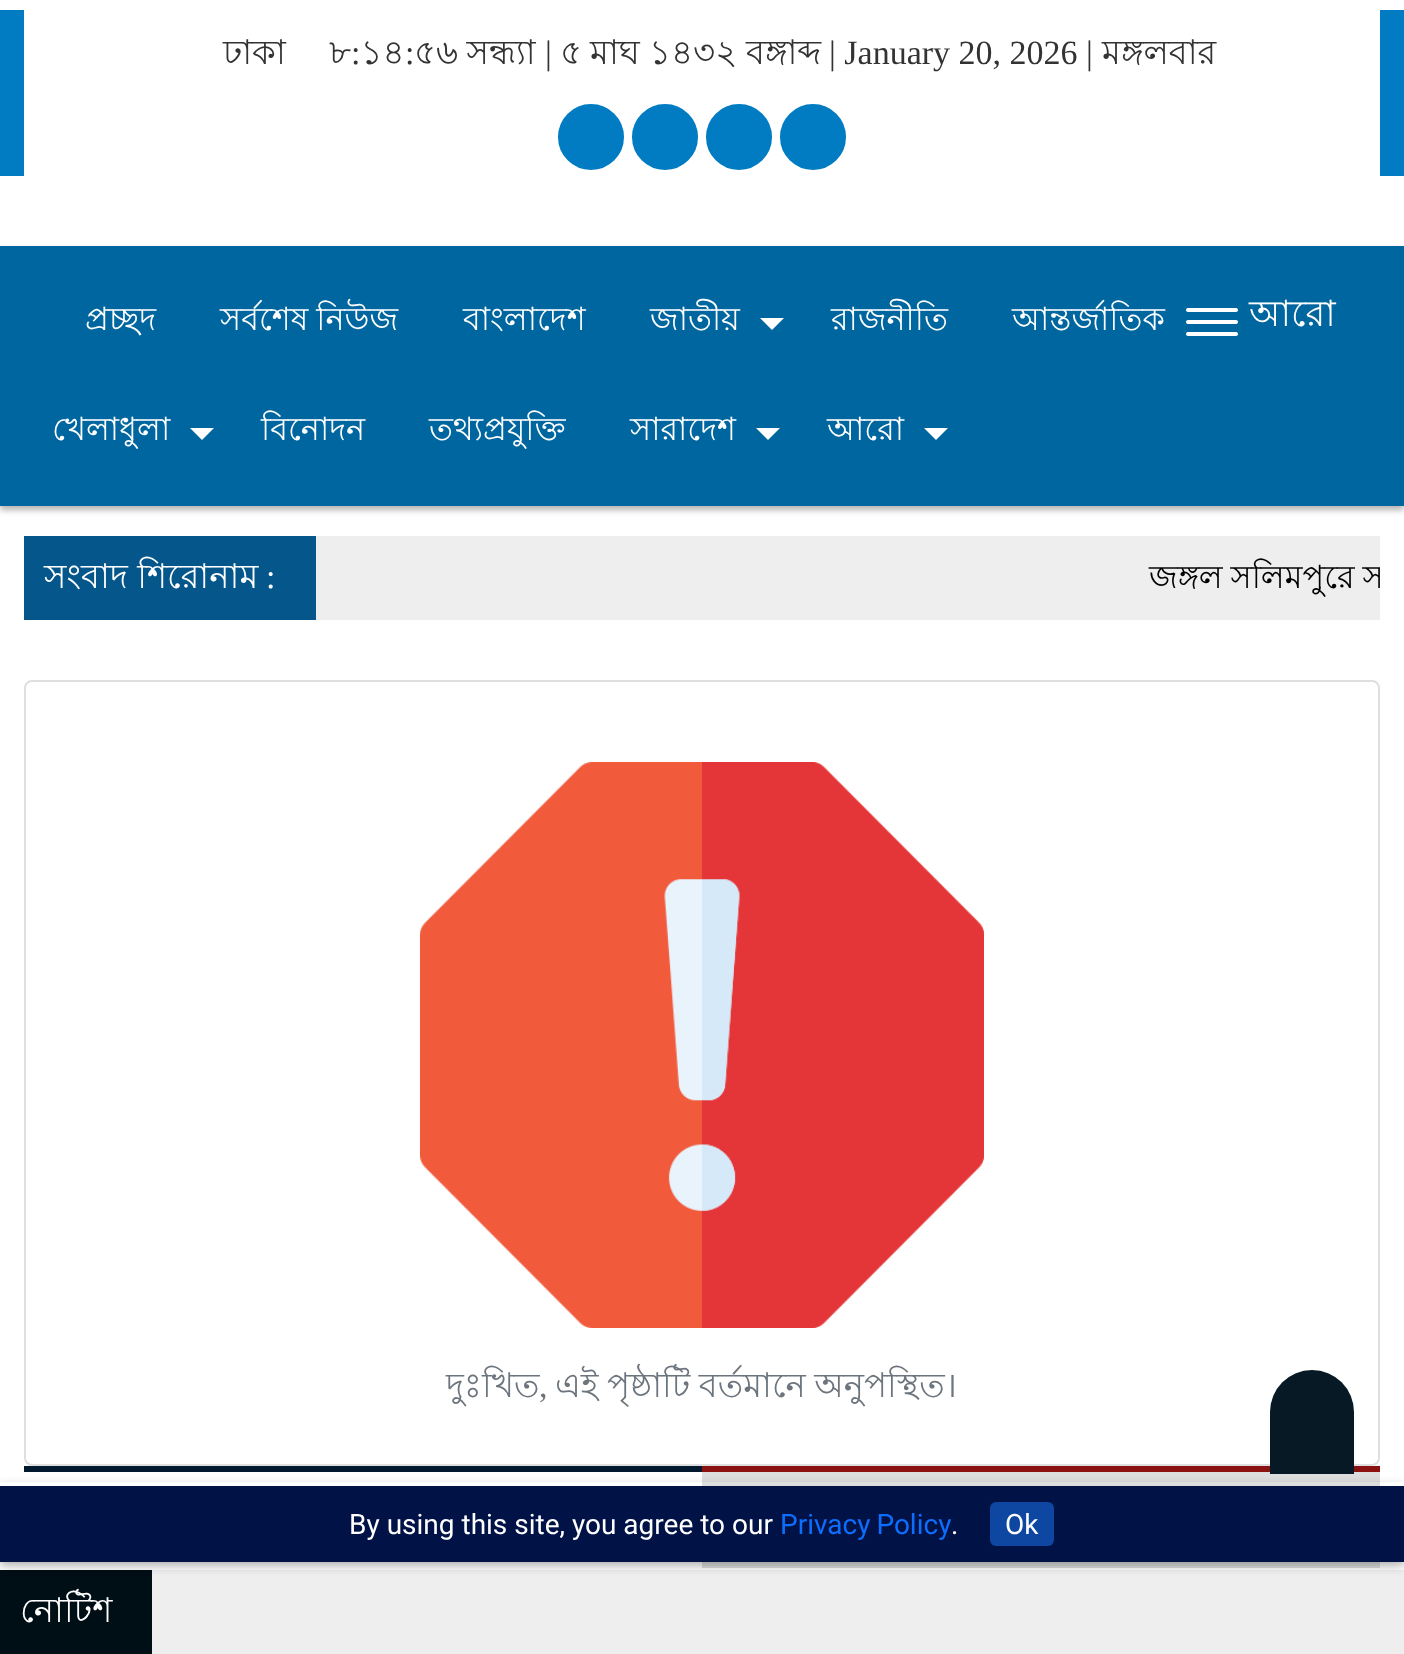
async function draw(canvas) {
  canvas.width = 1404
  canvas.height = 1654
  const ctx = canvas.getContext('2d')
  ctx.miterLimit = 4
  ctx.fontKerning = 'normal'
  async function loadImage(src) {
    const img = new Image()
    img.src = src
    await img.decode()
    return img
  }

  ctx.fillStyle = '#fff'
  ctx.fillRect(0, 0, 1404, 1654)
  ctx.fillStyle = '#017cc2'
  ctx.fillRect(0, 10, 1404, 166)
  ctx.fillStyle = '#fff'
  ctx.fillRect(24, 10, 1356, 166)
  ctx.font = '34px Lohit Bengali'
  ctx.fillStyle = '#333'
  ctx.fillText('ঢাকা', 223, 64)
  ctx.fillText('৮ ১৪', 329, 64)
  ctx.wordSpacing = '-1px'
  ctx.fillText('৫৬ সন্ধ্যা', 414, 64)
  ctx.wordSpacing = '0px'
  ctx.font = '34px Liberation Serif'
  ctx.fillText('|', 545, 64)
  ctx.font = '34px Lohit Bengali'
  ctx.fillText('৫', 560, 64)
  ctx.fillText('মাঘ', 590, 64)
  ctx.fillText('১৪৩২', 649, 64)
  ctx.fillText('বঙ্গাব্দ', 746, 64)
  ctx.font = '34px Liberation Serif'
  ctx.fillText('| January 20, 2026 |', 829, 64)
  ctx.font = '34px Lohit Bengali'
  ctx.fillText('মঙ্গলবার', 1102, 64)
  ctx.font = '34px Liberation Serif'
  ctx.fillText(':', 351, 64)
  ctx.fillText(':', 405, 64)
  ctx.fillStyle = '#017cc2'
  ctx.beginPath()
  ctx.arc(591, 137, 32, 0, 2 * Math.PI)
  ctx.fill()
  ctx.strokeStyle = '#017cc2'
  ctx.lineWidth = 2
  ctx.stroke()
  ctx.beginPath()
  ctx.arc(665, 137, 32, 0, 2 * Math.PI)
  ctx.fill()
  ctx.stroke()
  ctx.beginPath()
  ctx.arc(739, 137, 32, 0, 2 * Math.PI)
  ctx.fill()
  ctx.stroke()
  ctx.beginPath()
  ctx.arc(813, 137, 32, 0, 2 * Math.PI)
  ctx.fill()
  ctx.stroke()
  ctx.fillStyle = '#0000004d'
  ctx.filter = 'blur(3px)'
  ctx.beginPath()
  ctx.rect(0, 250, 1404, 260)
  ctx.fill()
  ctx.filter = 'none'
  ctx.fillStyle = '#00669f'
  ctx.fillRect(0, 246, 1404, 260)
  ctx.font = '32px Lohit Bengali'
  ctx.fillStyle = '#fff'
  ctx.fillText('প্রচ্ছদ', 85, 330)
  ctx.wordSpacing = '-1px'
  ctx.fillText('সর্বশেষ নিউজ', 220, 330)
  ctx.wordSpacing = '0px'
  ctx.fillText('বাংলাদেশ', 463, 330)
  ctx.fillText('জাতীয়', 650, 330)
  ctx.beginPath()
  ctx.moveTo(760, 318)
  ctx.lineTo(784, 318)
  ctx.lineTo(772, 330)
  ctx.closePath()
  ctx.fill()
  ctx.fillText('রাজনীতি', 831, 330)
  ctx.fillText('আন্তর্জাতিক', 1012, 330)
  ctx.fillText('খেলাধুলা', 52, 440)
  ctx.beginPath()
  ctx.moveTo(190, 428)
  ctx.lineTo(214, 428)
  ctx.lineTo(202, 440)
  ctx.closePath()
  ctx.fill()
  ctx.fillText('বিনোদন', 261, 440)
  ctx.fillText('তথ্যপ্রযুক্তি', 429, 440)
  ctx.fillText('সারাদেশ', 630, 440)
  ctx.beginPath()
  ctx.moveTo(756, 428)
  ctx.lineTo(780, 428)
  ctx.lineTo(768, 440)
  ctx.closePath()
  ctx.fill()
  ctx.fillText('আরো', 827, 440)
  ctx.beginPath()
  ctx.moveTo(924, 428)
  ctx.lineTo(948, 428)
  ctx.lineTo(936, 440)
  ctx.closePath()
  ctx.fill()
  ctx.beginPath()
  ctx.roundRect(1186, 308, 52, 4, 2)
  ctx.fill()
  ctx.beginPath()
  ctx.roundRect(1186, 320, 52, 4, 2)
  ctx.fill()
  ctx.beginPath()
  ctx.roundRect(1186, 332, 52, 4, 2)
  ctx.fill()
  ctx.font = '36px Lohit Bengali'
  ctx.fillText('আরো', 1249, 326)
  ctx.fillStyle = '#05568a'
  ctx.fillRect(24, 536, 292, 84)
  ctx.font = '34px Lohit Bengali'
  ctx.fillStyle = '#fff'
  ctx.fillText('সংবাদ শিরোনাম', 44, 588)
  ctx.font = '34px Liberation Serif'
  ctx.fillText(':', 266, 588)
  ctx.fillStyle = '#eee'
  ctx.fillRect(316, 536, 1064, 84)
  ctx.save()
  ctx.beginPath()
  ctx.rect(24, 536, 1356, 84)
  ctx.clip()
  ctx.wordSpacing = '-1px'
  ctx.font = '32px Lohit Bengali'
  ctx.fillStyle = '#000'
  ctx.fillText('জঙ্গল সলিমপুরে স', 1149, 588)
  ctx.restore()
  ctx.beginPath()
  ctx.roundRect(25, 681, 1354, 784, 7)
  ctx.strokeStyle = '#dfdfdf'
  ctx.stroke()
  ctx.drawImage(await loadImage('image0.png'), 420, 762, 564, 566)
  ctx.font = '34px Lohit Bengali'
  ctx.fillStyle = '#6c757d'
  ctx.fillText('দুঃখিত', 446, 1397)
  ctx.font = '34px Liberation Serif'
  ctx.fillText(',', 539, 1397)
  ctx.wordSpacing = '-1px'
  ctx.font = '34px Lohit Bengali'
  ctx.fillText('এই পৃষ্ঠাটি বর্তমানে অনুপস্থিত।', 555, 1397)
  ctx.fillStyle = '#01192f'
  ctx.fillRect(24, 1466, 678, 6)
  ctx.fillStyle = '#ddd'
  ctx.fillRect(702, 1472, 678, 96)
  ctx.fillStyle = '#8b1010'
  ctx.fillRect(702, 1466, 678, 6)
  ctx.fillStyle = '#061924'
  ctx.beginPath()
  ctx.roundRect(1270, 1370, 84, 104, [42, 42, 0, 0])
  ctx.fill()
  ctx.fillStyle = '#000e15'
  ctx.fillRect(0, 1570, 152, 84)
  ctx.fillStyle = '#eee'
  ctx.fillRect(152, 1570, 1252, 84)
  ctx.save()
  ctx.beginPath()
  ctx.moveTo(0, 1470)
  ctx.lineTo(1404, 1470)
  ctx.lineTo(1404, 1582)
  ctx.lineTo(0, 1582)
  ctx.closePath()
  ctx.moveTo(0, 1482)
  ctx.lineTo(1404, 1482)
  ctx.lineTo(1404, 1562)
  ctx.lineTo(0, 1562)
  ctx.closePath()
  ctx.clip('evenodd')
  ctx.fillStyle = '#0000004d'
  ctx.filter = 'blur(5px)'
  ctx.beginPath()
  ctx.rect(0, 1486, 1404, 80)
  ctx.fill()
  ctx.filter = 'none'
  ctx.restore()
  ctx.fillStyle = '#001246'
  ctx.fillRect(0, 1486, 1404, 76)
  ctx.wordSpacing = '0px'
  ctx.font = '28px Roboto'
  ctx.fillStyle = '#fff'
  ctx.fillText('By using this site, you agree to our', 349, 1534)
  ctx.wordSpacing = '-1px'
  ctx.fillStyle = '#0d6efd'
  ctx.fillText('Privacy Policy', 780, 1534)
  ctx.wordSpacing = '0px'
  ctx.fillStyle = '#fff'
  ctx.fillText('.', 951, 1534)
  ctx.fillStyle = '#0d47a1'
  ctx.beginPath()
  ctx.roundRect(990, 1502, 64, 44, 6)
  ctx.fill()
  ctx.fillStyle = '#fff'
  ctx.fillText('Ok', 1005, 1534)
  ctx.font = '34px Lohit Bengali'
  ctx.fillText('নোটিশ', 20, 1622)
}

draw(document.querySelector('canvas'))
